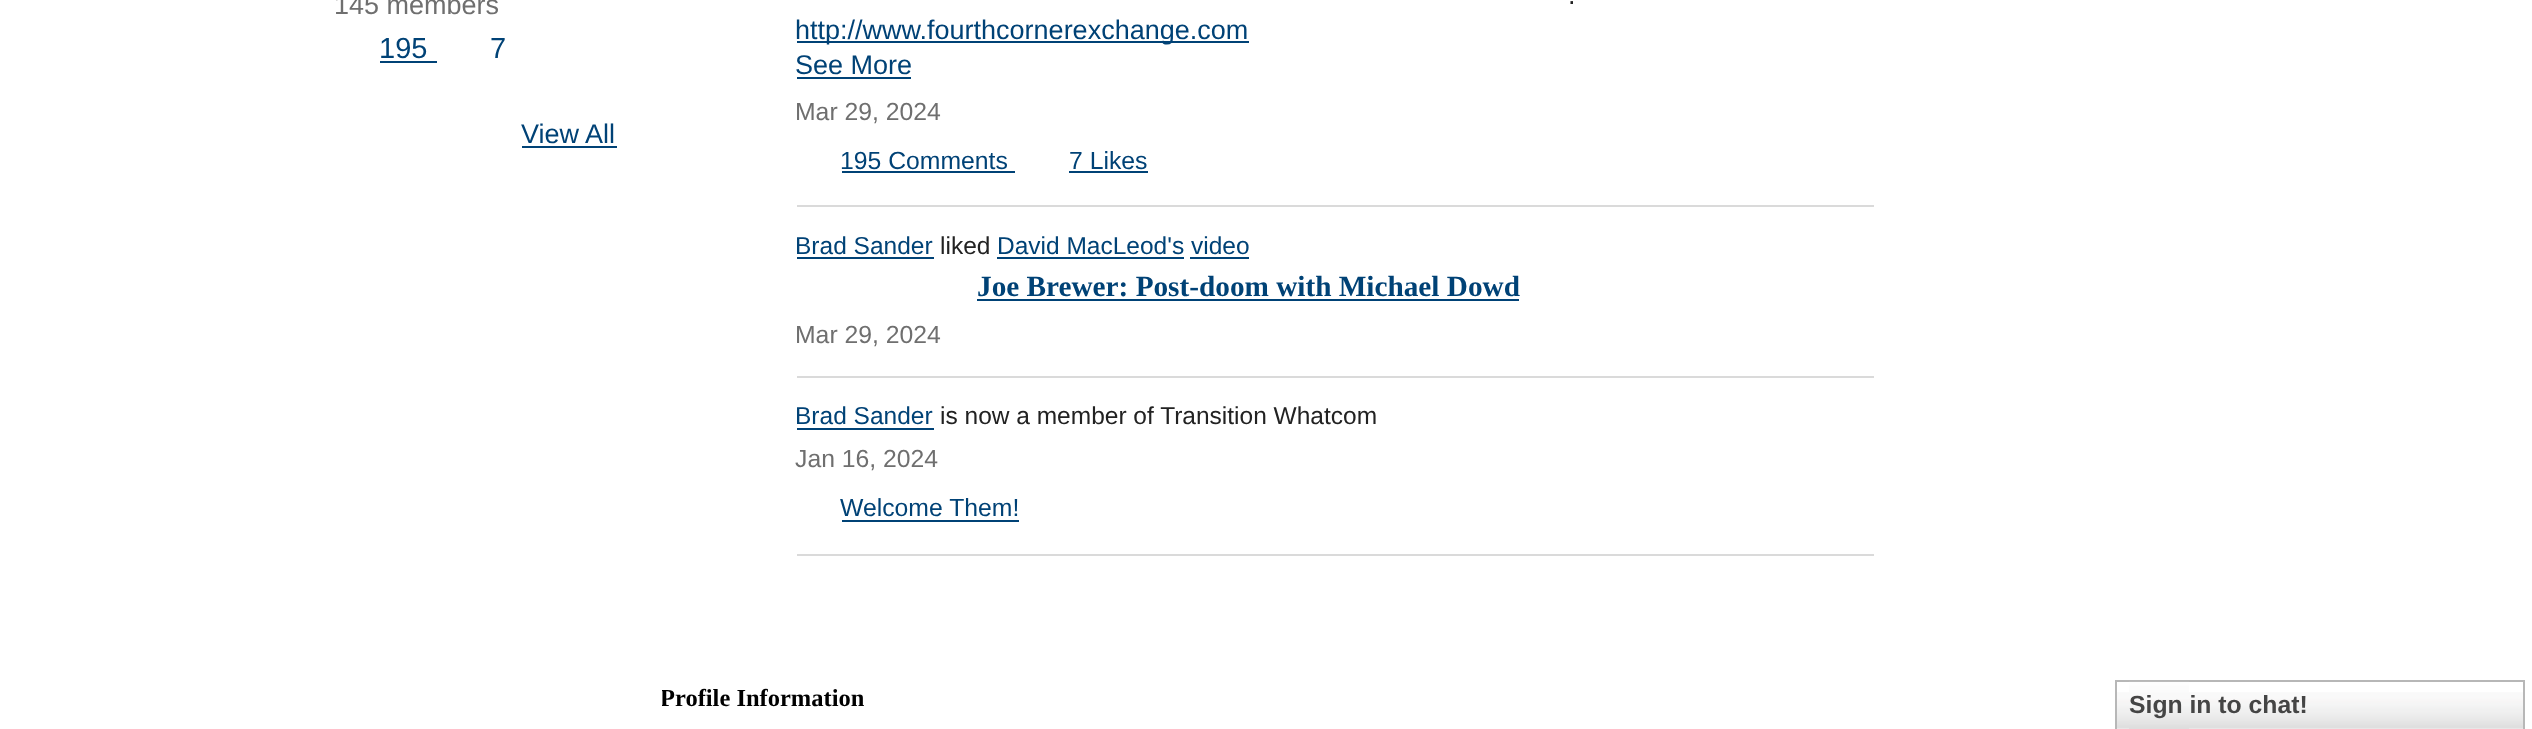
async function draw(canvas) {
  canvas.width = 2532
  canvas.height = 729
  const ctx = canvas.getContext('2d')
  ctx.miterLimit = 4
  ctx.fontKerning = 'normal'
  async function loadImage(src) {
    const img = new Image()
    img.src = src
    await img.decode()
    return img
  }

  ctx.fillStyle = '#fff'
  ctx.fillRect(0, 0, 2532, 729)
  ctx.font = '27px Liberation Sans'
  ctx.fillStyle = '#6f6f6f'
  ctx.fillText('145 members', 334, 14)
  ctx.font = '29px Liberation Sans'
  ctx.fillStyle = '#004276'
  ctx.fillText('195', 379, 58)
  ctx.fillRect(380, 61, 57, 2)
  ctx.fillText('7', 490, 58)
  ctx.font = '27px Liberation Sans'
  ctx.fillText('View All', 521, 143)
  ctx.fillRect(522, 146, 95, 2)
  ctx.fillStyle = '#dadada'
  ctx.fillRect(797, 205, 1077, 2)
  ctx.fillStyle = '#222'
  ctx.fillText('.', 1568, 4)
  ctx.fillStyle = '#004276'
  ctx.fillRect(797, 41, 452, 2)
  ctx.fillText('http://www.fourthcornerexchange.com', 795, 39)
  ctx.fillText('See More', 795, 74)
  ctx.fillRect(797, 77, 114, 2)
  ctx.font = '24.75px Liberation Sans'
  ctx.fillStyle = '#6f6f6f'
  ctx.fillText('Mar 29, 2024', 795, 120)
  ctx.fillStyle = '#004276'
  ctx.fillText('195 Comments', 840, 169)
  ctx.fillRect(842, 171, 173, 2)
  ctx.fillText('7 Likes', 1069, 169)
  ctx.fillRect(1069, 171, 79, 2)
  ctx.fillStyle = '#dadada'
  ctx.fillRect(797, 376, 1077, 2)
  ctx.font = '24.5px Liberation Sans'
  ctx.fillStyle = '#004276'
  ctx.fillText('Brad Sander', 795, 254)
  ctx.fillRect(797, 257, 137, 2)
  ctx.fillStyle = '#222'
  ctx.fillText('liked', 940, 254)
  ctx.fillStyle = '#004276'
  ctx.fillText('David MacLeod\'s', 997, 254)
  ctx.fillRect(997, 257, 187, 2)
  ctx.fillText('video', 1191, 254)
  ctx.fillRect(1190, 257, 59, 2)
  ctx.font = 'bold 29.25px Liberation Serif'
  ctx.fillText('Joe Brewer: Post-doom with Michael Dowd', 977, 296)
  ctx.fillRect(977, 299, 542, 2)
  ctx.font = '24.75px Liberation Sans'
  ctx.fillStyle = '#6f6f6f'
  ctx.fillText('Mar 29, 2024', 795, 343)
  ctx.fillStyle = '#dadada'
  ctx.fillRect(797, 554, 1077, 2)
  ctx.font = '24.5px Liberation Sans'
  ctx.fillStyle = '#004276'
  ctx.fillText('Brad Sander', 795, 424)
  ctx.fillRect(797, 428, 137, 2)
  ctx.fillStyle = '#222'
  ctx.fillText('is now a member of Transition Whatcom', 940, 424)
  ctx.font = '24.75px Liberation Sans'
  ctx.fillStyle = '#6f6f6f'
  ctx.fillText('Jan 16, 2024', 795, 467)
  ctx.fillStyle = '#004276'
  ctx.fillText('Welcome Them!', 840, 516)
  ctx.fillRect(842, 520, 177, 2)
  ctx.save()
  ctx.beginPath()
  ctx.rect(662, 682, 202, 31)
  ctx.clip()
  ctx.font = 'bold 24.5px Liberation Serif'
  ctx.fillStyle = '#000'
  ctx.fillText('Profile Information', 660, 706)
  ctx.restore()
  ctx.drawImage(await loadImage('image0.png'), 2117, 692, 406, 37)
  ctx.strokeStyle = '#b7b7b7'
  ctx.lineWidth = 2
  ctx.strokeRect(2116, 681, 408, 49)
  ctx.drawImage(await loadImage('image1.png'), 2129, 681, 60, 48)
  ctx.font = 'bold 24.75px Liberation Sans'
  ctx.fillStyle = '#454545'
  ctx.fillText('Sign in to chat!', 2129, 713)
}

draw(document.querySelector('canvas'))
